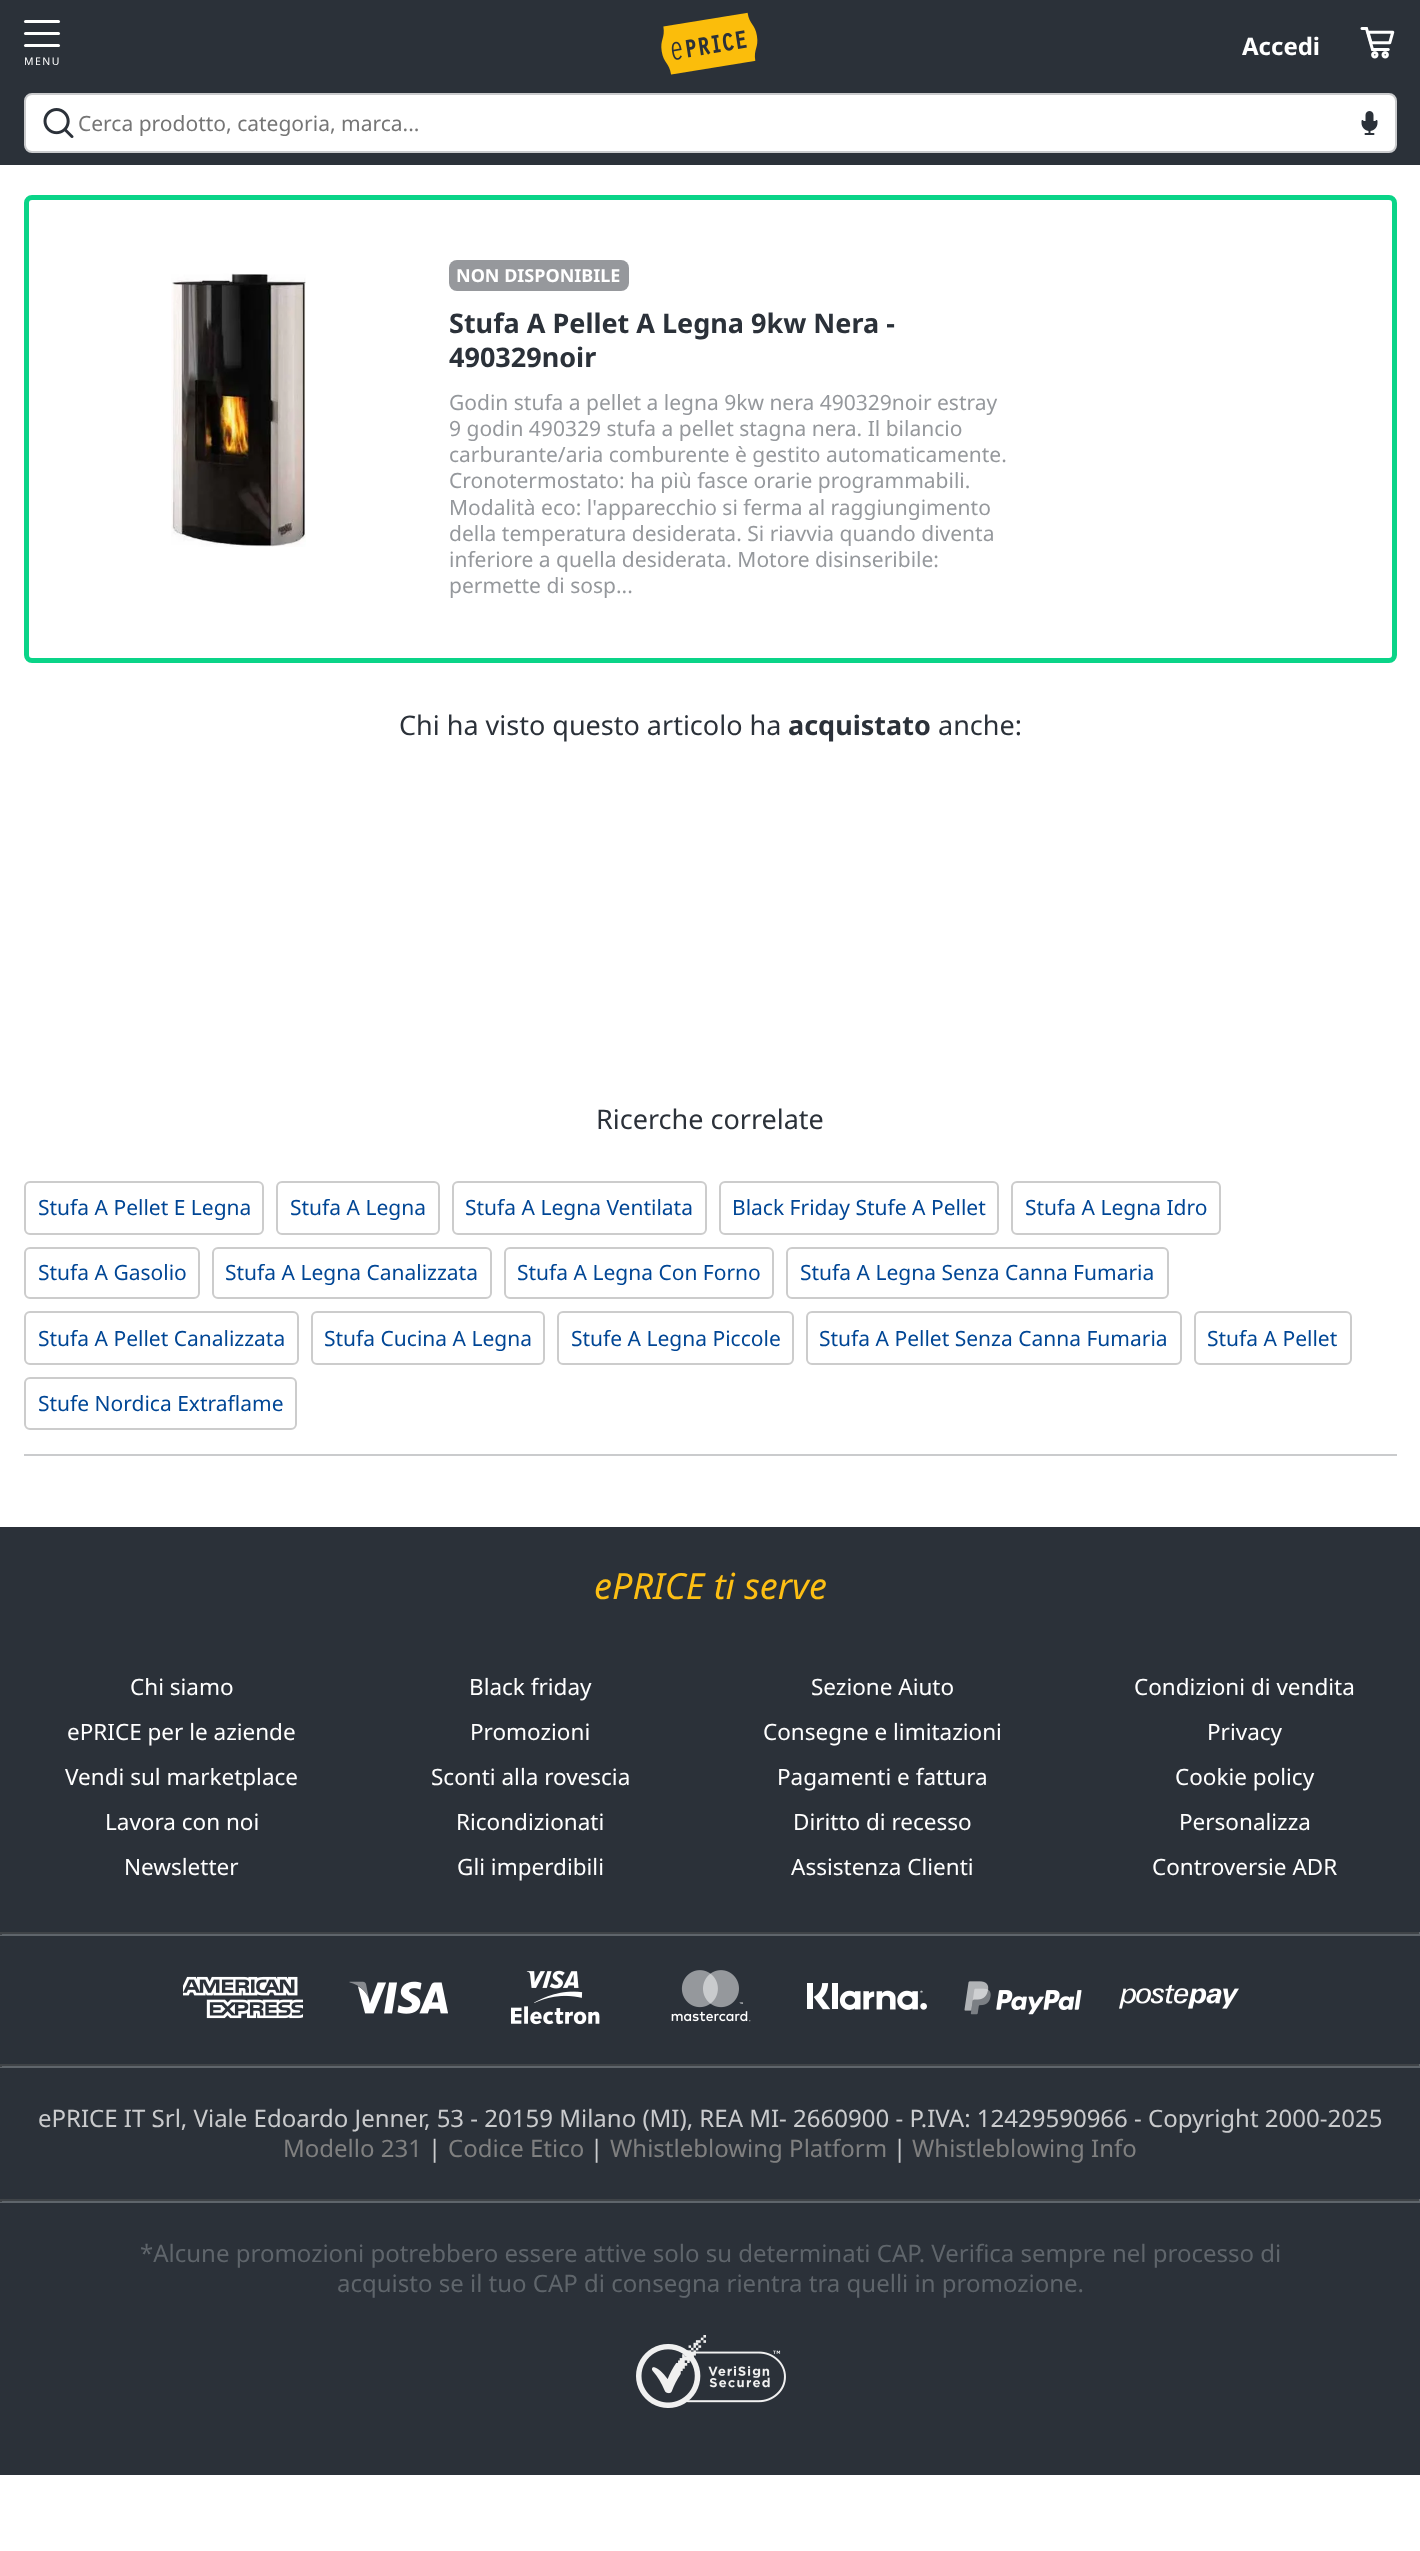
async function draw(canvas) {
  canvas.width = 1420
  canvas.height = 2551
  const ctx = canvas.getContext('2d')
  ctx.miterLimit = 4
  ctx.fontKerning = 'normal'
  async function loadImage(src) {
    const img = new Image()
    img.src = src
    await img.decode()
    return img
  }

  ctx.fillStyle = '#fff'
  ctx.fillRect(0, 0, 1420, 2551)
  ctx.fillStyle = '#2b3139'
  ctx.fillRect(0, 0, 1420, 165)
  ctx.drawImage(await loadImage('image0.png'), 661, 12, 97, 63)
  ctx.font = 'bold 24px Noto Sans'
  ctx.fillStyle = '#fff'
  ctx.fillText('Accedi', 1242, 55)
  ctx.drawImage(await loadImage('image1.png'), 1360, 27, 35, 32)
  ctx.beginPath()
  ctx.roundRect(24, 32, 36, 3, 1.5)
  ctx.fill()
  ctx.beginPath()
  ctx.roundRect(24, 20, 36, 3, 1.5)
  ctx.fill()
  ctx.beginPath()
  ctx.roundRect(24, 44, 36, 3, 1.5)
  ctx.fill()
  ctx.letterSpacing = '1.5px'
  ctx.font = '10.5px Noto Sans'
  ctx.fillText('MENU', 24, 65)
  ctx.beginPath()
  ctx.roundRect(25, 94, 1371, 58, 7)
  ctx.fill()
  ctx.strokeStyle = '#cacbcd'
  ctx.lineWidth = 2
  ctx.stroke()
  ctx.drawImage(await loadImage('image2.png'), 43, 108, 31, 30)
  ctx.letterSpacing = '0px'
  ctx.font = '21px Noto Sans'
  ctx.fillStyle = '#757575'
  ctx.fillText('Cerca prodotto, categoria, marca...', 78, 131)
  ctx.drawImage(await loadImage('image3.png'), 1361, 111, 17, 24)
  ctx.beginPath()
  ctx.roundRect(26.5, 197.5, 1368, 463, 5.5)
  ctx.strokeStyle = '#0ad488'
  ctx.lineWidth = 5
  ctx.stroke()
  ctx.drawImage(await loadImage('image4.png'), 171, 273, 135, 274)
  ctx.fillStyle = '#96989c'
  ctx.beginPath()
  ctx.roundRect(449, 260, 180, 31, 8)
  ctx.fill()
  ctx.font = 'bold 18px Noto Sans'
  ctx.fillStyle = '#fff'
  ctx.fillText('NON DISPONIBILE', 456, 282)
  ctx.font = 'bold 27px Noto Sans'
  ctx.fillStyle = '#2b3139'
  ctx.fillText('Stufa A Pellet A Legna 9kw Nera -', 449, 333)
  ctx.fillText('490329noir', 449, 367)
  ctx.font = '21px Noto Sans'
  ctx.fillStyle = '#95989c'
  ctx.fillText('Godin stufa a pellet a legna 9kw nera 490329noir estray', 449, 410)
  ctx.fillText('9 godin 490329 stufa a pellet stagna nera. Il bilancio', 449, 436)
  ctx.fillText('carburante/aria comburente è gestito automaticamente.', 449, 462)
  ctx.fillText('Cronotermostato: ha più fasce orarie programmabili.', 449, 488)
  ctx.fillText('Modalità eco: l\'apparecchio si ferma al raggiungimento', 449, 515)
  ctx.fillText('della temperatura desiderata. Si riavvia quando diventa', 449, 541)
  ctx.fillText('inferiore a quella desiderata. Motore disinseribile:', 449, 567)
  ctx.fillText('permette di sosp...', 449, 593)
  ctx.font = '27px Noto Sans'
  ctx.fillStyle = '#2b3139'
  ctx.fillText('Chi ha visto questo articolo ha', 399, 735)
  ctx.font = 'bold 27px Noto Sans'
  ctx.fillText('acquistato', 788, 735)
  ctx.font = '27px Noto Sans'
  ctx.fillText('anche:', 938, 735)
  ctx.fillText('Ricerche correlate', 596, 1129)
  ctx.beginPath()
  ctx.roundRect(25, 1182, 238, 52, 5)
  ctx.strokeStyle = '#ccc'
  ctx.lineWidth = 2
  ctx.stroke()
  ctx.font = '21px Noto Sans'
  ctx.fillStyle = '#004695'
  ctx.fillText('Stufa A Pellet E Legna', 38, 1215)
  ctx.beginPath()
  ctx.roundRect(277, 1182, 162, 52, 5)
  ctx.stroke()
  ctx.fillText('Stufa A Legna', 290, 1215)
  ctx.beginPath()
  ctx.roundRect(453, 1182, 253, 52, 5)
  ctx.stroke()
  ctx.fillText('Stufa A Legna Ventilata', 465, 1215)
  ctx.beginPath()
  ctx.roundRect(720, 1182, 278, 52, 5)
  ctx.stroke()
  ctx.fillText('Black Friday Stufe A Pellet', 732, 1215)
  ctx.beginPath()
  ctx.roundRect(1012, 1182, 208, 52, 5)
  ctx.stroke()
  ctx.fillText('Stufa A Legna Idro', 1025, 1215)
  ctx.beginPath()
  ctx.roundRect(25, 1248, 174, 50, 5)
  ctx.stroke()
  ctx.fillText('Stufa A Gasolio', 38, 1280)
  ctx.beginPath()
  ctx.roundRect(213, 1248, 278, 50, 5)
  ctx.stroke()
  ctx.fillText('Stufa A Legna Canalizzata', 225, 1280)
  ctx.beginPath()
  ctx.roundRect(505, 1248, 268, 50, 5)
  ctx.stroke()
  ctx.fillText('Stufa A Legna Con Forno', 517, 1280)
  ctx.beginPath()
  ctx.roundRect(787, 1248, 381, 50, 5)
  ctx.stroke()
  ctx.fillText('Stufa A Legna Senza Canna Fumaria', 800, 1280)
  ctx.beginPath()
  ctx.roundRect(25, 1312, 273, 52, 5)
  ctx.stroke()
  ctx.fillText('Stufa A Pellet Canalizzata', 38, 1346)
  ctx.beginPath()
  ctx.roundRect(312, 1312, 232, 52, 5)
  ctx.stroke()
  ctx.fillText('Stufa Cucina A Legna', 324, 1346)
  ctx.beginPath()
  ctx.roundRect(558, 1312, 235, 52, 5)
  ctx.stroke()
  ctx.fillText('Stufe A Legna Piccole', 571, 1346)
  ctx.beginPath()
  ctx.roundRect(807, 1312, 374, 52, 5)
  ctx.stroke()
  ctx.fillText('Stufa A Pellet Senza Canna Fumaria', 819, 1346)
  ctx.beginPath()
  ctx.roundRect(1195, 1312, 156, 52, 5)
  ctx.stroke()
  ctx.fillText('Stufa A Pellet', 1207, 1346)
  ctx.beginPath()
  ctx.roundRect(25, 1378, 271, 51, 5)
  ctx.stroke()
  ctx.fillText('Stufe Nordica Extraflame', 38, 1411)
  ctx.fillStyle = '#cacbcd'
  ctx.fillRect(24, 1454, 1373, 2)
  ctx.fillStyle = '#2b3139'
  ctx.fillRect(0, 1527, 1420, 948)
  ctx.font = 'italic 36px Noto Sans'
  ctx.fillStyle = '#fdbf14'
  ctx.fillText('ePRICE ti serve', 594, 1599)
  ctx.font = '22.5px Noto Sans'
  ctx.fillStyle = '#fff'
  ctx.fillText('Chi siamo', 130, 1695)
  ctx.fillText('ePRICE per le aziende', 67, 1740)
  ctx.fillText('Vendi sul marketplace', 65, 1785)
  ctx.fillText('Lavora con noi', 105, 1830)
  ctx.fillText('Newsletter', 124, 1875)
  ctx.fillText('Black friday', 469, 1695)
  ctx.fillText('Promozioni', 470, 1740)
  ctx.fillText('Sconti alla rovescia', 431, 1785)
  ctx.fillText('Ricondizionati', 456, 1830)
  ctx.fillText('Gli imperdibili', 457, 1875)
  ctx.fillText('Sezione Aiuto', 811, 1695)
  ctx.fillText('Consegne e limitazioni', 763, 1740)
  ctx.fillText('Pagamenti e fattura', 777, 1785)
  ctx.fillText('Diritto di recesso', 793, 1830)
  ctx.fillText('Assistenza Clienti', 791, 1875)
  ctx.fillText('Condizioni di vendita', 1134, 1695)
  ctx.fillText('Privacy', 1207, 1740)
  ctx.fillText('Cookie policy', 1175, 1785)
  ctx.fillText('Personalizza', 1179, 1830)
  ctx.fillText('Controversie ADR', 1152, 1875)
  ctx.fillStyle = '#3f4347'
  ctx.fillRect(0, 1932, 1420, 2)
  ctx.fillStyle = '#5f656b'
  ctx.fillRect(1419, 1932, 1, 3)
  ctx.fillRect(0, 1934, 1420, 2)
  ctx.fillStyle = '#3f4347'
  ctx.fillRect(0, 1932, 2, 3)
  ctx.drawImage(await loadImage('image5.png'), 183, 1976, 120, 43)
  ctx.drawImage(await loadImage('image6.png'), 349, 1981, 99, 33)
  ctx.drawImage(await loadImage('image7.png'), 511, 1970, 89, 55)
  ctx.drawImage(await loadImage('image8.png'), 671, 1970, 80, 52)
  ctx.drawImage(await loadImage('image9.png'), 807, 1983, 120, 27)
  ctx.drawImage(await loadImage('image10.png'), 964, 1981, 118, 34)
  ctx.drawImage(await loadImage('image11.png'), 1119, 1984, 120, 25)
  ctx.fillRect(0, 2064, 1420, 2)
  ctx.fillStyle = '#5f656b'
  ctx.fillRect(1419, 2064, 1, 3)
  ctx.fillRect(0, 2066, 1420, 2)
  ctx.fillStyle = '#3f4347'
  ctx.fillRect(0, 2064, 2, 3)
  ctx.font = '24px Noto Sans'
  ctx.fillStyle = '#cacbcd'
  ctx.fillText('ePRICE IT Srl, Viale Edoardo Jenner, 53 - 20159 Milano (MI), REA MI- 2660900 - P.IVA: 12429590966 - Copyright 2000-2025', 38, 2127)
  ctx.fillStyle = '#808080'
  ctx.fillText('Modello 231', 283, 2157)
  ctx.fillStyle = '#cacbcd'
  ctx.fillText('|', 428, 2157)
  ctx.fillStyle = '#808080'
  ctx.fillText('Codice Etico', 448, 2157)
  ctx.fillStyle = '#cacbcd'
  ctx.fillText('|', 590, 2157)
  ctx.fillStyle = '#808080'
  ctx.fillText('Whistleblowing Platform', 610, 2157)
  ctx.fillStyle = '#cacbcd'
  ctx.fillText('|', 893, 2157)
  ctx.fillStyle = '#808080'
  ctx.fillText('Whistleblowing Info', 912, 2157)
  ctx.fillStyle = '#3f4347'
  ctx.fillRect(0, 2199, 1420, 2)
  ctx.fillStyle = '#5f656b'
  ctx.fillRect(1419, 2199, 1, 3)
  ctx.fillRect(0, 2201, 1420, 2)
  ctx.fillStyle = '#3f4347'
  ctx.fillRect(0, 2199, 2, 3)
  ctx.fillStyle = '#5f656b'
  ctx.fillText('*Alcune promozioni potrebbero essere attive solo su determinati CAP. Verifica sempre nel processo di', 140, 2262)
  ctx.fillText('acquisto se il tuo CAP di consegna rientra tra quelli in promozione.', 337, 2292)
  ctx.drawImage(await loadImage('image12.png'), 636, 2335, 150, 73)
}

draw(document.querySelector('canvas'))
